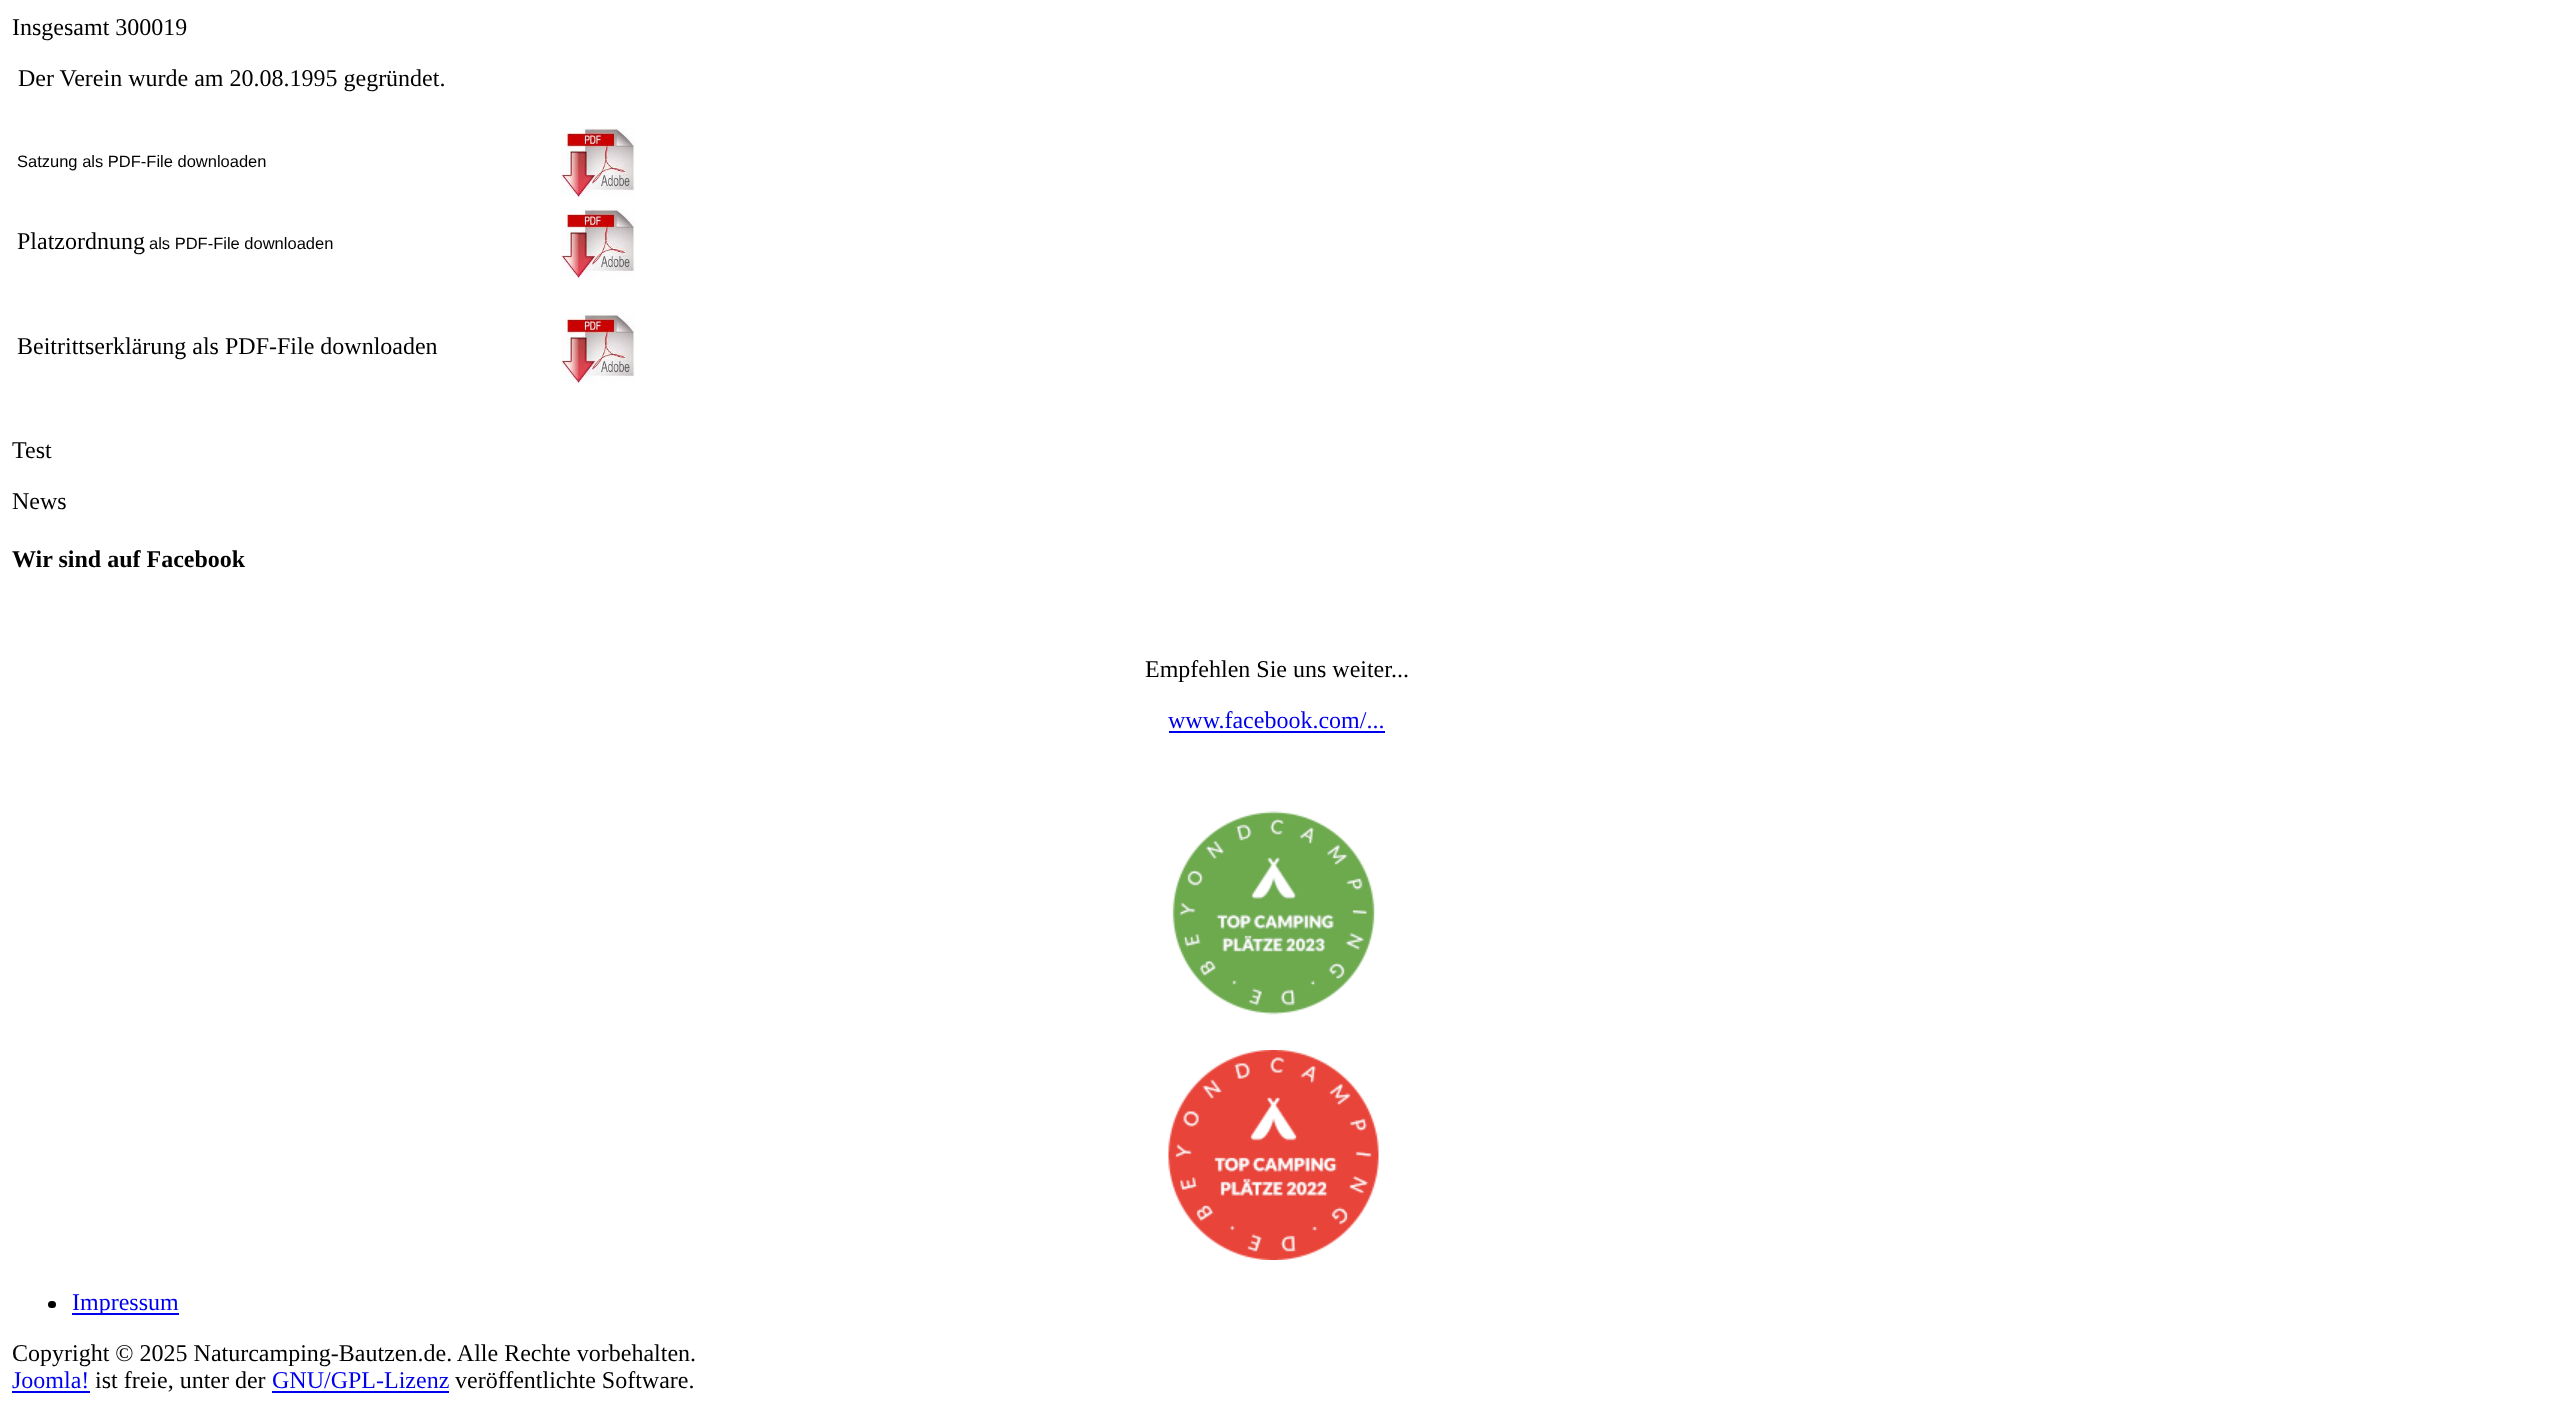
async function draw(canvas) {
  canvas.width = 2552
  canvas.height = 1406
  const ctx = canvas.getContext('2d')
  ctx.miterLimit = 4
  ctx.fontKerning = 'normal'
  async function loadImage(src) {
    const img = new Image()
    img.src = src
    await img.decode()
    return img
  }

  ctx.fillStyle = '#fff'
  ctx.fillRect(0, 0, 2552, 1406)
  ctx.font = '24px Liberation Serif'
  ctx.fillStyle = '#000'
  ctx.fillText('Insgesamt 300019', 12, 35)
  ctx.fillText('Der Verein wurde am 20.08.1995 gegründet.', 18, 86)
  ctx.font = '16.5px Liberation Sans'
  ctx.fillText('Satzung als PDF-File downloaden', 17, 167)
  ctx.drawImage(await loadImage('image0.png'), 561, 128, 74, 70)
  ctx.font = '24px Liberation Serif'
  ctx.fillText('Platzordnung', 17, 249)
  ctx.font = '16.5px Liberation Sans'
  ctx.fillText('als PDF-File downloaden', 149, 249)
  ctx.drawImage(await loadImage('image0.png'), 561, 209, 74, 70)
  ctx.font = '24px Liberation Serif'
  ctx.fillText('Beitrittserklärung als PDF-File downloaden', 17, 354)
  ctx.drawImage(await loadImage('image1.png'), 561, 314, 74, 70)
  ctx.fillText('Test', 12, 458)
  ctx.fillText('News', 12, 509)
  ctx.font = 'bold 24px Liberation Serif'
  ctx.fillText('Wir sind auf Facebook', 12, 567)
  ctx.font = '24px Liberation Serif'
  ctx.fillText('Empfehlen Sie uns weiter...', 1145, 677)
  ctx.fillStyle = '#00e'
  ctx.fillText('www.facebook.com/...', 1168, 728)
  ctx.fillRect(1169, 731, 216, 2)
  ctx.drawImage(await loadImage('image2.png'), 1172, 811, 203, 204)
  ctx.drawImage(await loadImage('image3.png'), 1168, 1050, 211, 210)
  ctx.fillStyle = '#000'
  ctx.beginPath()
  ctx.roundRect(48, 1301, 8, 7, 3.5)
  ctx.fill()
  ctx.fillStyle = '#00e'
  ctx.fillRect(72, 1313, 107, 2)
  ctx.fillText('Impressum', 72, 1310)
  ctx.fillStyle = '#000'
  ctx.fillText('Copyright © 2025 Naturcamping-Bautzen.de. Alle Rechte vorbehalten.', 12, 1361)
  ctx.fillStyle = '#00e'
  ctx.fillText('Joomla!', 12, 1388)
  ctx.fillRect(12, 1391, 78, 2)
  ctx.fillStyle = '#000'
  ctx.fillText('ist freie, unter der', 95, 1388)
  ctx.fillStyle = '#00e'
  ctx.fillText('GNU/GPL-Lizenz', 272, 1388)
  ctx.fillRect(272, 1391, 177, 2)
  ctx.fillStyle = '#000'
  ctx.fillText('veröffentlichte Software.', 455, 1388)
}

draw(document.querySelector('canvas'))
